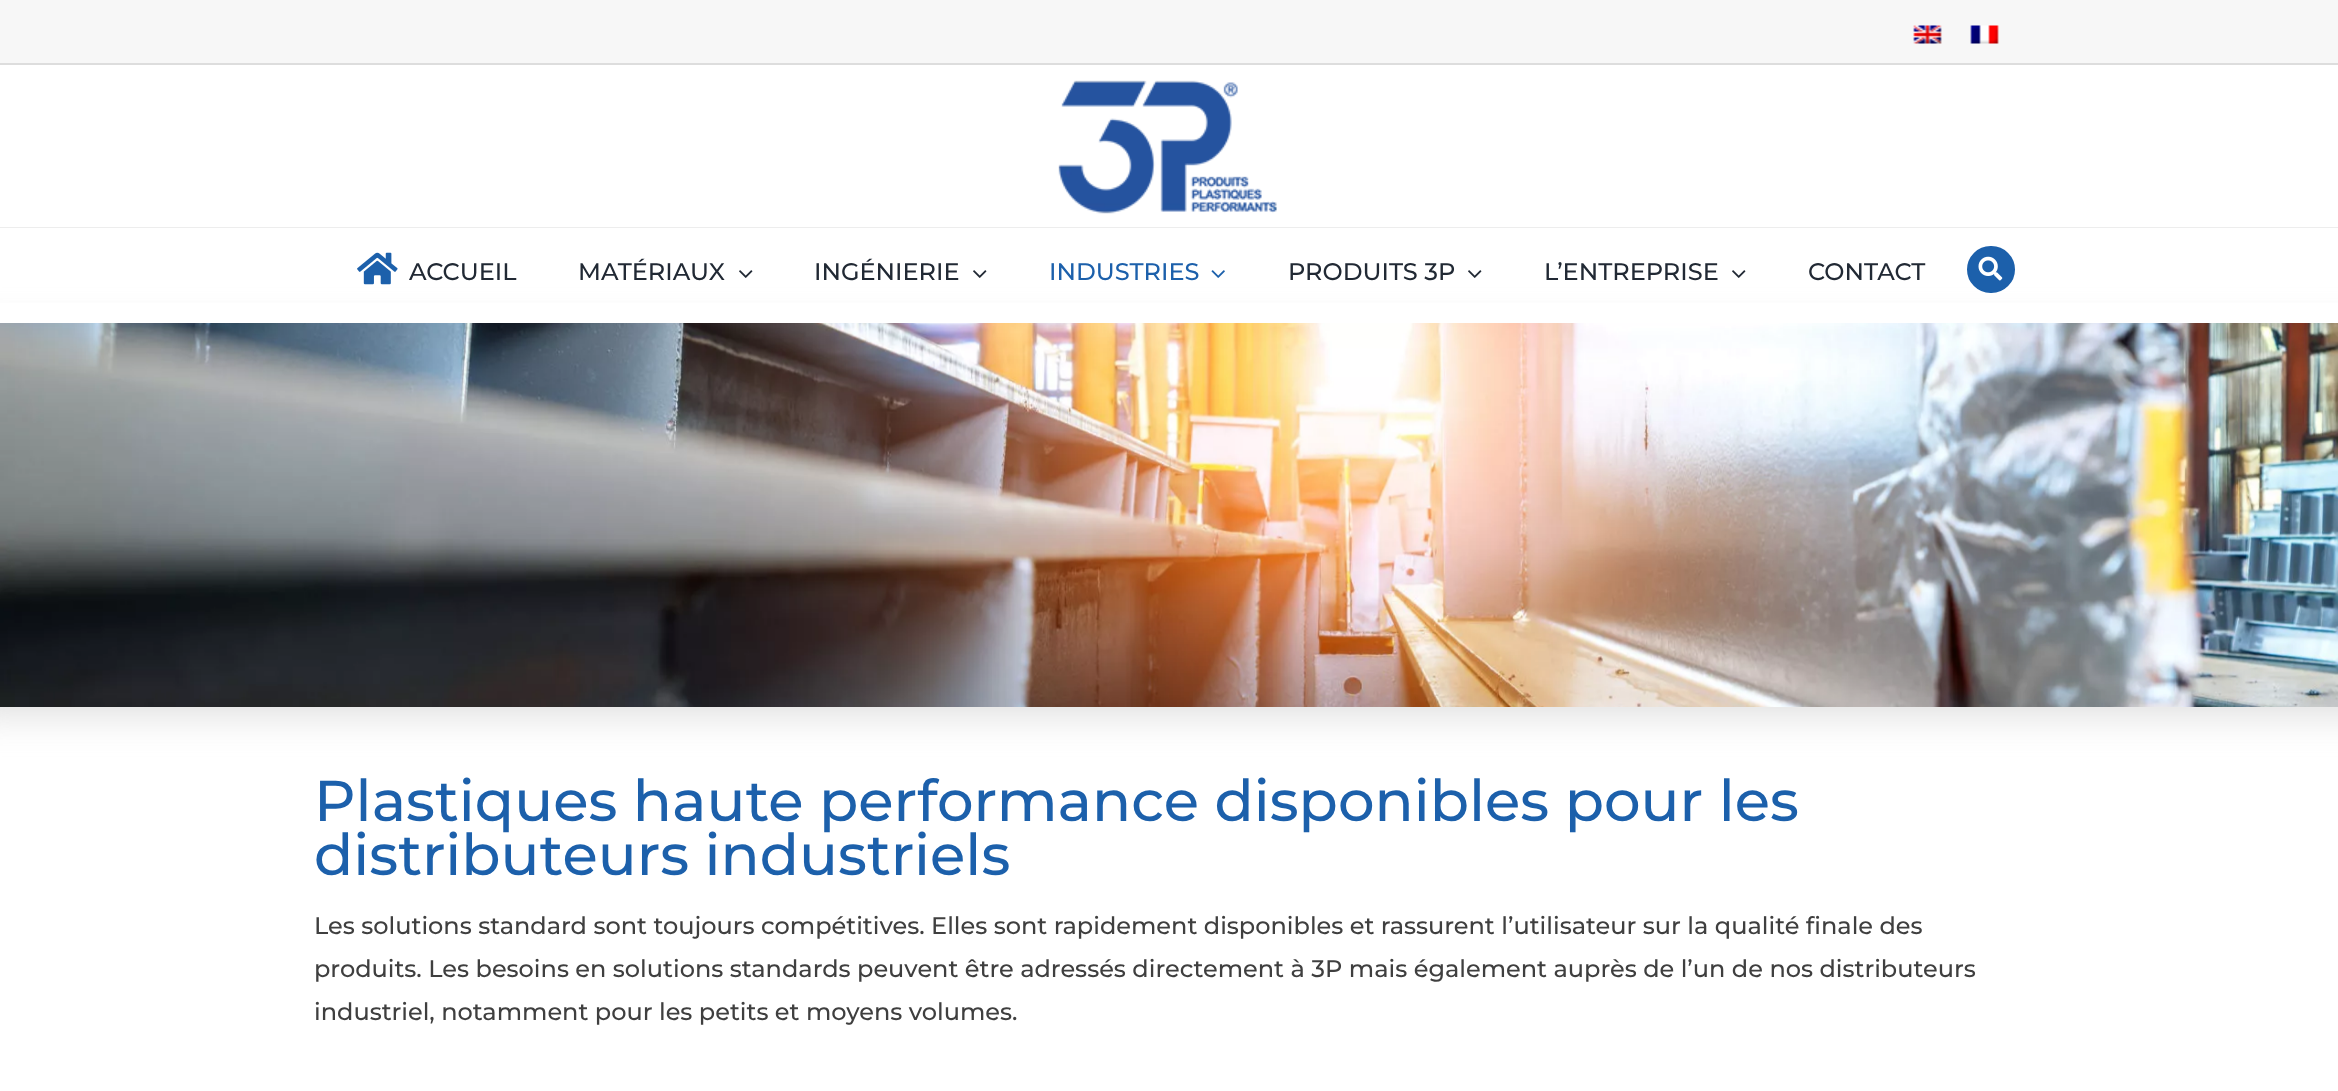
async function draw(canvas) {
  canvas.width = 2338
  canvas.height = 1091
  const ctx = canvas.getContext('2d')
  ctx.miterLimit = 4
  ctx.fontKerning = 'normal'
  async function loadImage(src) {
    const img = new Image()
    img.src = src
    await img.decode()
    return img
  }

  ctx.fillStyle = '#fff'
  ctx.fillRect(0, 0, 2338, 1091)
  ctx.fillStyle = '#f7f7f7'
  ctx.fillRect(0, 0, 2338, 63)
  ctx.fillStyle = '#ddd'
  ctx.fillRect(0, 63, 2338, 2)
  ctx.drawImage(await loadImage('image0.png'), 1913, 25, 29, 19)
  ctx.drawImage(await loadImage('image1.png'), 1970, 25, 29, 19)
  ctx.fillStyle = '#ededed'
  ctx.fillRect(0, 227, 2338, 1)
  ctx.drawImage(await loadImage('image2.png'), 1058, 80, 219, 134)
  ctx.fillStyle = '#ddd'
  ctx.filter = 'blur(19px)'
  ctx.beginPath()
  ctx.rect(-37, 330, 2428, 384)
  ctx.fill()
  ctx.filter = 'none'
  ctx.fillStyle = '#fff'
  ctx.fillRect(0, 303, 2338, 20)
  ctx.drawImage(await loadImage('image3.png'), 357, 252, 41, 33)
  ctx.font = '500 24px Montserrat'
  ctx.fillStyle = '#212934'
  ctx.fillText('ACCUEIL', 409, 280)
  ctx.fillText('MATÉRIAUX', 578, 280)
  ctx.drawImage(await loadImage('image4.png'), 739, 270, 14, 8)
  ctx.fillText('INGÉNIERIE', 814, 280)
  ctx.drawImage(await loadImage('image4.png'), 973, 270, 14, 8)
  ctx.fillStyle = '#1c60ab'
  ctx.fillText('INDUSTRIES', 1049, 280)
  ctx.drawImage(await loadImage('image5.png'), 1211, 270, 14, 8)
  ctx.fillStyle = '#212934'
  ctx.fillText('PRODUITS 3P', 1288, 280)
  ctx.drawImage(await loadImage('image4.png'), 1468, 270, 14, 8)
  ctx.fillText('L’ENTREPRISE', 1544, 280)
  ctx.drawImage(await loadImage('image4.png'), 1732, 270, 14, 8)
  ctx.fillText('CONTACT', 1808, 280)
  ctx.fillStyle = '#1c60ab'
  ctx.beginPath()
  ctx.roundRect(1968, 247, 46, 45, 22.5)
  ctx.fill()
  ctx.strokeStyle = '#1c60ab'
  ctx.lineWidth = 2
  ctx.stroke()
  ctx.drawImage(await loadImage('image6.png'), 1978, 256, 25, 25)
  ctx.drawImage(await loadImage('image7.png'), 0, 323, 2338, 384)
  ctx.font = '500 57.6px Montserrat'
  ctx.fillText('Plastiques haute performance disponibles pour les', 314, 821)
  ctx.fillText('distributeurs industriels', 314, 875)
  ctx.font = '500 24px Montserrat'
  ctx.fillStyle = '#3f3f3f'
  ctx.fillText('Les solutions standard sont toujours compétitives. Elles sont rapidement disponibles et rassurent l’utilisateur sur la qualité finale des', 314, 934)
  ctx.fillText('produits. Les besoins en solutions standards peuvent être adressés directement à 3P mais également auprès de l’un de nos distributeurs', 314, 977)
  ctx.fillText('industriel, notamment pour les petits et moyens volumes.', 314, 1020)
}

draw(document.querySelector('canvas'))
